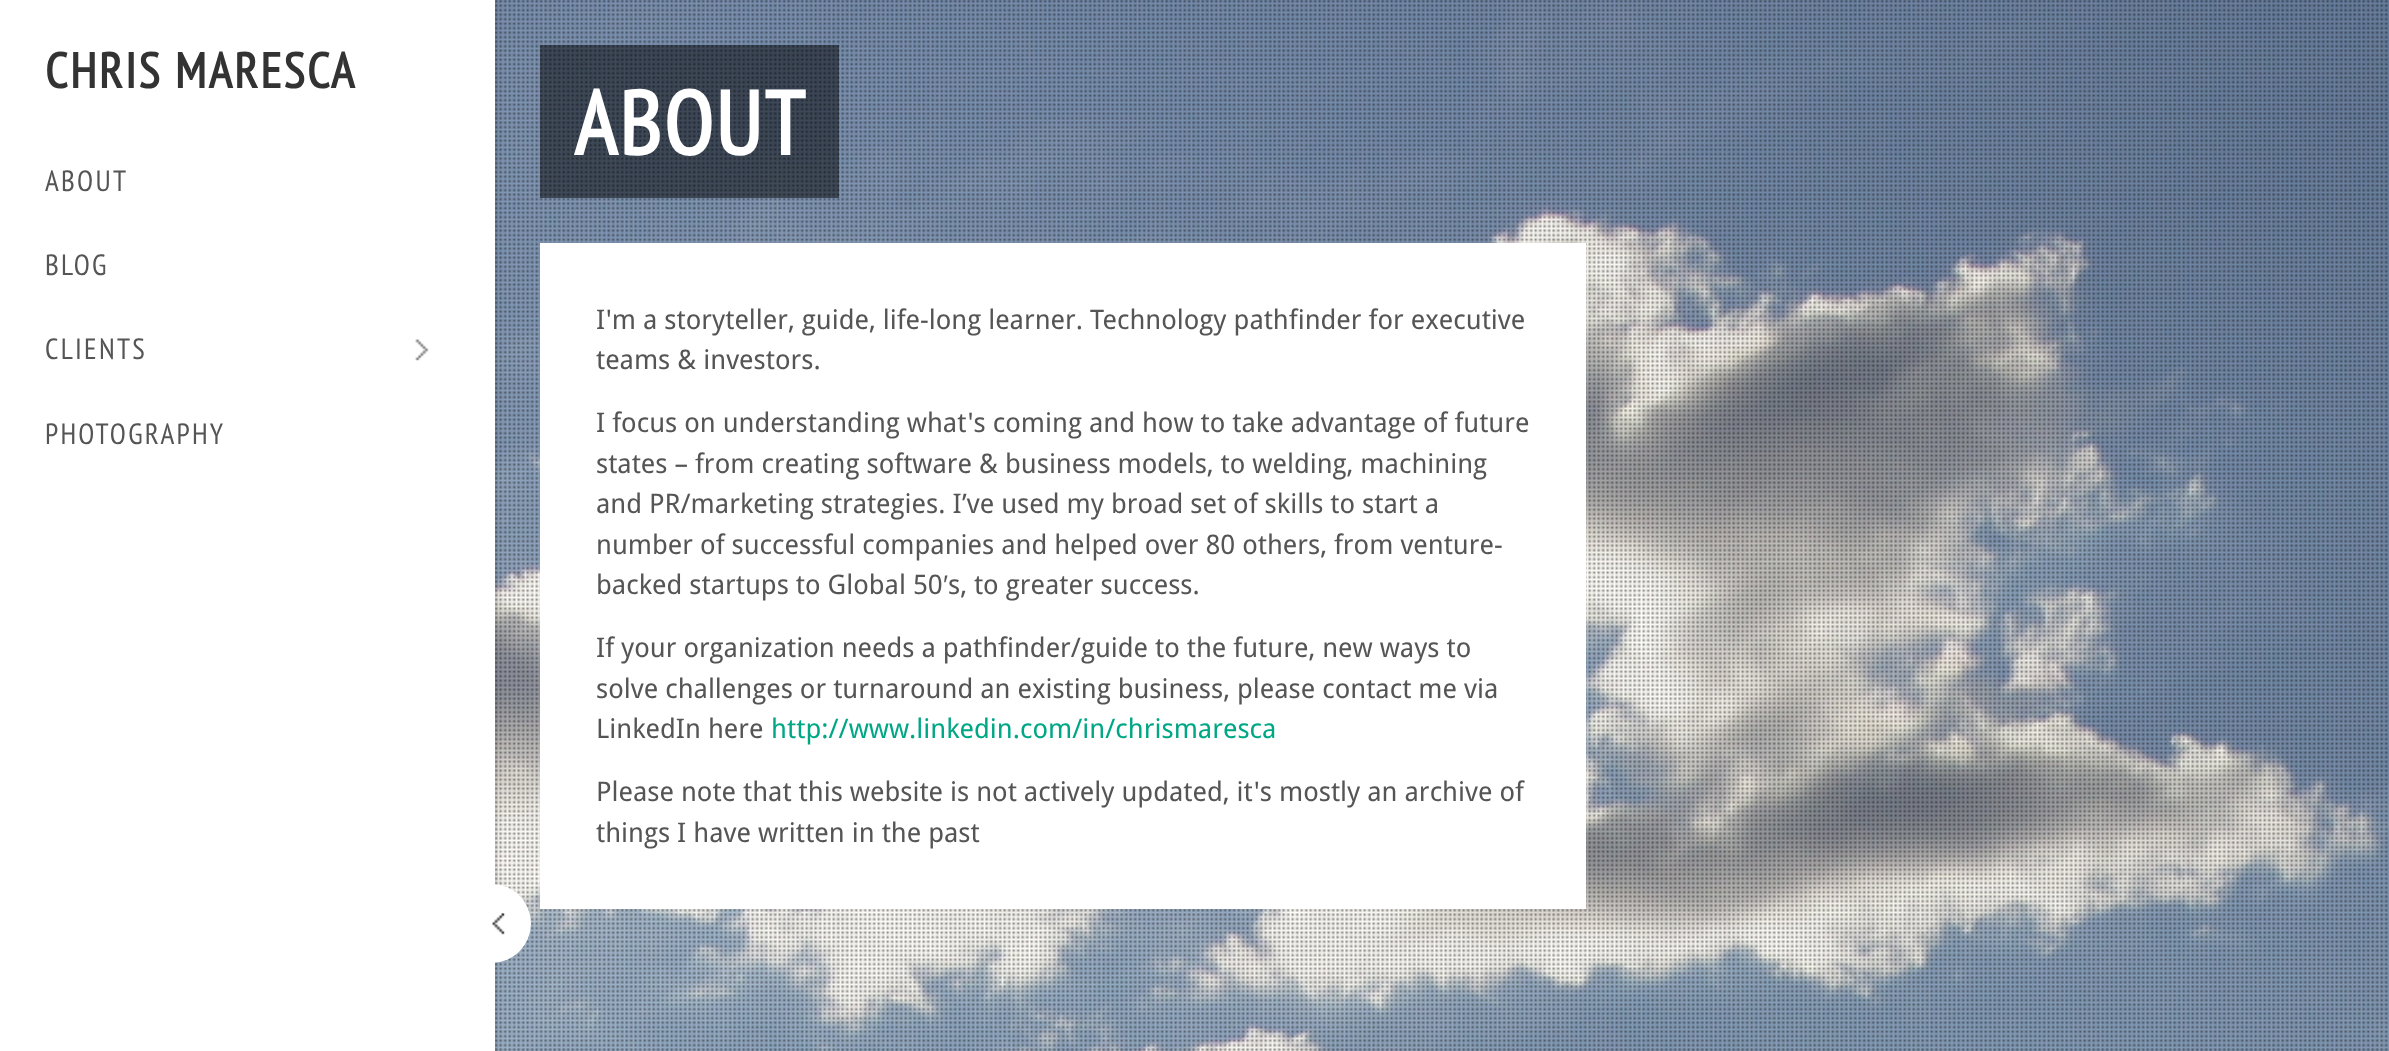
async function draw(canvas) {
  canvas.width = 2389
  canvas.height = 1051
  const ctx = canvas.getContext('2d')
  ctx.miterLimit = 4
  ctx.fontKerning = 'normal'
  async function loadImage(src) {
    const img = new Image()
    img.src = src
    await img.decode()
    return img
  }

  ctx.fillStyle = '#fff'
  ctx.fillRect(0, 0, 2389, 1051)
  ctx.drawImage(await loadImage('image0.png'), 495, 0, 1894, 1051)
  ctx.drawImage(await loadImage('image3.png'), 495, 0, 1893, 1051)
  ctx.fillStyle = '#00000040'
  ctx.filter = 'blur(3.5px)'
  ctx.beginPath()
  ctx.rect(0, 0, 495, 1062)
  ctx.fill()
  ctx.filter = 'none'
  ctx.fillStyle = '#fff'
  ctx.fillRect(0, 0, 495, 1051)
  ctx.letterSpacing = '2.25px'
  ctx.font = 'bold 49.5px PT Sans Narrow'
  ctx.fillStyle = '#333'
  ctx.fillText('CHRIS MARESCA', 45, 88)
  ctx.font = '29.25px PT Sans Narrow'
  ctx.fillStyle = '#555'
  ctx.fillText('ABOUT', 45, 191)
  ctx.fillText('BLOG', 45, 275)
  ctx.fillText('CLIENTS', 45, 359)
  ctx.drawImage(await loadImage('image1.png'), 415, 339, 14, 22)
  ctx.fillText('PHOTOGRAPHY', 45, 444)
  ctx.fillStyle = '#fff'
  ctx.beginPath()
  ctx.arc(491.5, 923.5, 39.5, 0, 2 * Math.PI)
  ctx.fill()
  ctx.drawImage(await loadImage('image2.png'), 492, 913, 13, 22)
  ctx.fillStyle = '#00000080'
  ctx.fillRect(574, 45, 232, 153)
  ctx.font = 'bold 90px PT Sans Narrow'
  ctx.fillStyle = '#fff'
  ctx.fillText('ABOUT', 574, 155)
  ctx.fillStyle = '#00000080'
  ctx.fillRect(540, 45, 34, 153)
  ctx.fillRect(806, 45, 33, 153)
  ctx.fillStyle = '#fff'
  ctx.fillRect(540, 243, 1046, 666)
  ctx.letterSpacing = '0px'
  ctx.font = '27px Droid Sans'
  ctx.fillStyle = '#555'
  ctx.fillText('I\'m a storyteller, guide, life-long learner. Technology pathfinder for executive', 596, 329)
  ctx.fillText('teams & investors.', 596, 369)
  ctx.fillText('I focus on understanding what\'s coming and how to take advantage of future', 596, 432)
  ctx.fillText('states – from creating software & business models, to welding, machining', 596, 473)
  ctx.fillText('and PR/marketing strategies. I’ve used my broad set of skills to start a', 596, 513)
  ctx.fillText('number of successful companies and helped over 80 others, from venture-', 596, 554)
  ctx.fillText('backed startups to Global 50', 596, 594)
  ctx.font = '27px Liberation Sans'
  ctx.fillText('′', 943, 594)
  ctx.font = '27px Droid Sans'
  ctx.fillText('s, to greater success.', 948, 594)
  ctx.fillText('If your organization needs a pathfinder/guide to the future, new ways to', 596, 657)
  ctx.fillText('solve challenges or turnaround an existing business, please contact me via', 596, 698)
  ctx.fillText('LinkedIn here', 596, 738)
  ctx.fillStyle = '#00a785'
  ctx.fillText('http://www.linkedin.com/in/chrismaresca', 771, 738)
  ctx.fillStyle = '#555'
  ctx.fillText('Please note that this website is not actively updated, it\'s mostly an archive of', 596, 801)
  ctx.fillText('things I have written in the past', 596, 842)
}

draw(document.querySelector('canvas'))
